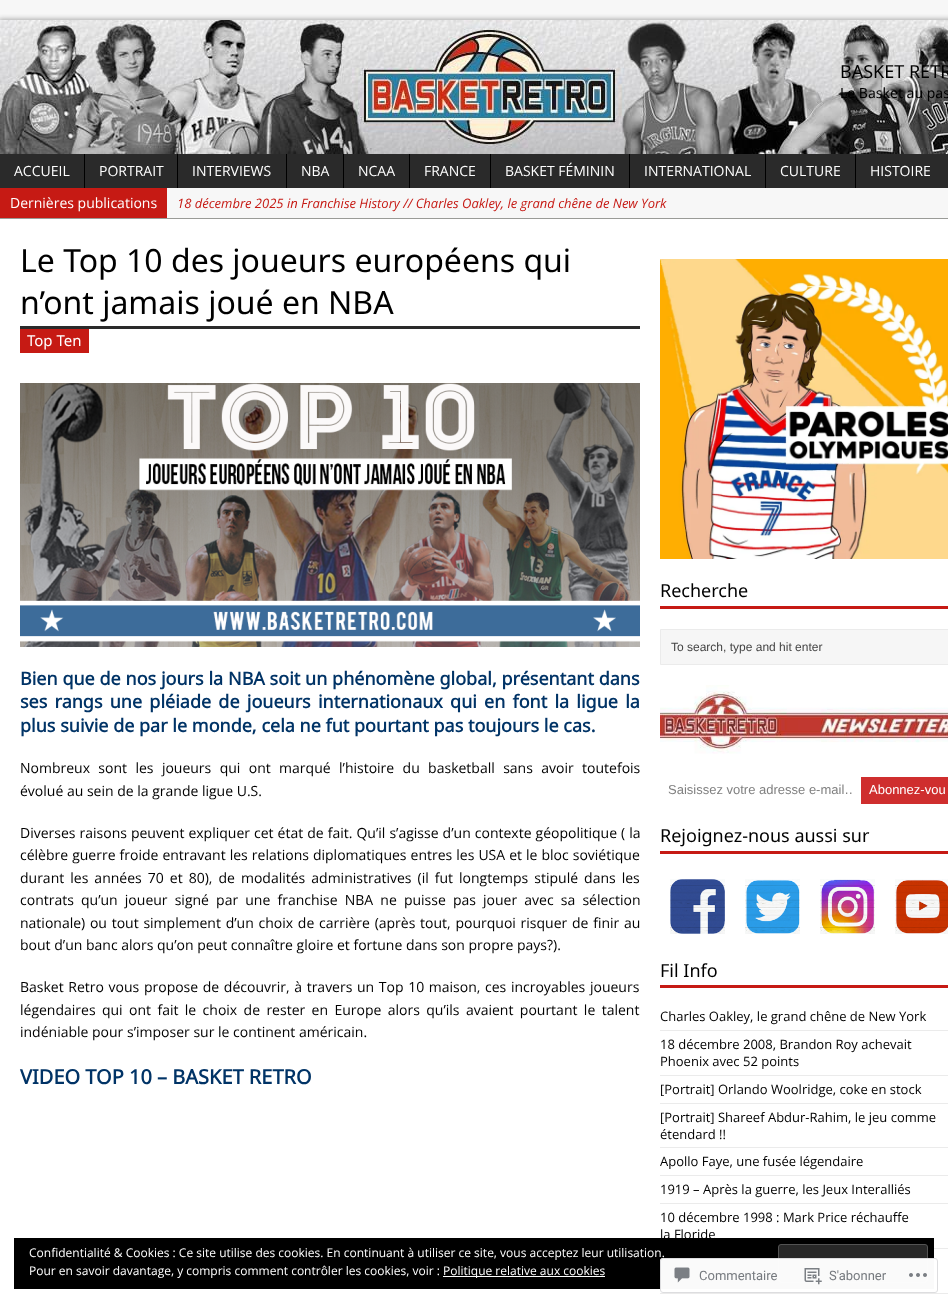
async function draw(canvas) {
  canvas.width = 948
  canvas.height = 1303
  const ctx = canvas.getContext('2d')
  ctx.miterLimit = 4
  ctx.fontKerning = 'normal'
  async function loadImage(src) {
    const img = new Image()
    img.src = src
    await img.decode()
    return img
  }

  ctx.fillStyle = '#f7f7f7'
  ctx.fillRect(0, 0, 948, 1303)
  ctx.save()
  ctx.beginPath()
  ctx.rect(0, 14, 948, 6)
  ctx.clip()
  ctx.fillStyle = '#a8a8a8'
  ctx.filter = 'blur(2.5px)'
  ctx.beginPath()
  ctx.rect(-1, 19, 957, 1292)
  ctx.fill()
  ctx.filter = 'none'
  ctx.restore()
  ctx.drawImage(await loadImage('image0.png'), 0, 20, 948, 134)
  ctx.font = '18px Noto Sans'
  ctx.fillStyle = '#000'
  ctx.fillText('BASKET RETR', 840, 78)
  ctx.font = '14px Noto Sans'
  ctx.fillText('Le Basket au pas', 840, 98)
  ctx.fillStyle = '#2a2a2a'
  ctx.fillRect(0, 154, 948, 34)
  ctx.font = '14px Open Sans'
  ctx.fillStyle = '#fff'
  ctx.fillText('ACCUEIL', 14, 176)
  ctx.fillStyle = '#000'
  ctx.fillRect(84, 154, 1, 34)
  ctx.fillStyle = '#fff'
  ctx.fillText('PORTRAIT', 99, 176)
  ctx.fillStyle = '#000'
  ctx.fillRect(177, 154, 1, 34)
  ctx.fillStyle = '#fff'
  ctx.fillText('INTERVIEWS', 192, 176)
  ctx.fillStyle = '#000'
  ctx.fillRect(286, 154, 1, 34)
  ctx.fillStyle = '#fff'
  ctx.fillText('NBA', 301, 176)
  ctx.fillStyle = '#000'
  ctx.fillRect(343, 154, 1, 34)
  ctx.fillStyle = '#fff'
  ctx.fillText('NCAA', 358, 176)
  ctx.fillStyle = '#000'
  ctx.fillRect(409, 154, 1, 34)
  ctx.fillStyle = '#fff'
  ctx.fillText('FRANCE', 424, 176)
  ctx.fillStyle = '#000'
  ctx.fillRect(490, 154, 1, 34)
  ctx.fillStyle = '#fff'
  ctx.fillText('BASKET FÉMININ', 505, 176)
  ctx.fillStyle = '#000'
  ctx.fillRect(629, 154, 1, 34)
  ctx.fillStyle = '#fff'
  ctx.fillText('INTERNATIONAL', 644, 176)
  ctx.fillStyle = '#000'
  ctx.fillRect(765, 154, 1, 34)
  ctx.fillStyle = '#fff'
  ctx.fillText('CULTURE', 780, 176)
  ctx.fillStyle = '#000'
  ctx.fillRect(855, 154, 1, 34)
  ctx.fillStyle = '#fff'
  ctx.fillText('HISTOIRE', 870, 176)
  ctx.fillStyle = '#9a9b97'
  ctx.fillRect(0, 218, 948, 1)
  ctx.fillStyle = '#c61a14'
  ctx.fillRect(0, 188, 167, 30)
  ctx.fillStyle = '#fff'
  ctx.fillText('Dernières publications', 10, 208)
  ctx.font = 'italic 13px Open Sans'
  ctx.fillStyle = '#c61a14'
  ctx.fillText('18 décembre 2025 in Franchise History // Charles Oakley, le grand chêne de New York', 177, 208)
  ctx.fillStyle = '#fff'
  ctx.fillRect(0, 219, 948, 1084)
  ctx.font = '32px Noto Sans'
  ctx.fillStyle = '#000'
  ctx.fillText('Le Top 10 des joueurs européens qui', 20, 272)
  ctx.fillText('n’ont jamais joué en NBA', 20, 314)
  ctx.fillStyle = '#2a2a2a'
  ctx.fillRect(20, 326, 620, 3)
  ctx.fillStyle = '#c61a14'
  ctx.fillRect(20, 329, 69, 24)
  ctx.font = '15px Noto Sans'
  ctx.fillStyle = '#fff'
  ctx.fillText('Top Ten', 27, 346)
  ctx.drawImage(await loadImage('image1.png'), 20, 383, 620, 264)
  ctx.wordSpacing = '0.1px'
  ctx.font = 'bold 18px Noto Sans'
  ctx.fillStyle = '#036'
  ctx.fillText('Bien que de nos jours la NBA soit un phénomène global, présentant dans', 20, 685)
  ctx.wordSpacing = '2.5px'
  ctx.fillText('ses rangs une pléiade de joueurs internationaux qui en font la ligue la', 20, 708)
  ctx.wordSpacing = '0px'
  ctx.fillText('plus suivie de par le monde, cela ne fut pourtant pas toujours le cas.', 20, 732)
  ctx.wordSpacing = '4.75px'
  ctx.font = '14px Open Sans'
  ctx.fillStyle = '#000'
  ctx.fillText('Nombreux sont les joueurs qui ont marqué l’histoire du basketball sans avoir toutefois', 20, 773)
  ctx.wordSpacing = '0px'
  ctx.fillText('évolué au sein de la grande ligue U.S.', 20, 796)
  ctx.wordSpacing = '0.4px'
  ctx.fillText('Diverses raisons peuvent expliquer cet état de fait. Qu’il s’agisse d’un contexte géopolitique ( la', 20, 838)
  ctx.fillText('célèbre guerre froide entravant les relations diplomatiques entres les USA et le bloc soviétique', 20, 860)
  ctx.wordSpacing = '2.4px'
  ctx.fillText('durant les années 70 et 80), de modalités administratives (il fut longtemps stipulé dans les', 20, 883)
  ctx.wordSpacing = '3.5px'
  ctx.fillText('contrats qu’un joueur signé par une franchise NBA ne puisse pas jouer avec sa sélection', 20, 905)
  ctx.wordSpacing = '1.1px'
  ctx.fillText('nationale) ou tout simplement d’un choix de carrière (après tout, pourquoi risquer de finir au', 20, 928)
  ctx.wordSpacing = '0px'
  ctx.fillText('bout d’un banc alors qu’on peut connaître gloire et fortune dans son propre pays?).', 20, 950)
  ctx.wordSpacing = '1px'
  ctx.fillText('Basket Retro vous propose de découvrir, à travers un Top 10 maison, ces incroyables joueurs', 20, 992)
  ctx.wordSpacing = '2.75px'
  ctx.fillText('légendaires qui ont fait le choix de rester en Europe alors qu’ils avaient pourtant le talent', 20, 1015)
  ctx.wordSpacing = '0px'
  ctx.fillText('indéniable pour s’imposer sur le continent américain.', 20, 1037)
  ctx.font = 'bold 20px Noto Sans'
  ctx.fillStyle = '#036'
  ctx.fillText('VIDEO TOP 10 – BASKET RETRO', 20, 1084)
  ctx.drawImage(await loadImage('image2.png'), 660, 259, 288, 300)
  ctx.fillStyle = '#c61a14'
  ctx.fillRect(660, 606, 288, 3)
  ctx.font = '18px Noto Sans'
  ctx.fillStyle = '#000'
  ctx.fillText('Recherche', 660, 597)
  ctx.fillStyle = '#f6f6f6'
  ctx.beginPath()
  ctx.rect(660.5, 629.5, 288, 35)
  ctx.fill()
  ctx.strokeStyle = '#ebebeb'
  ctx.stroke()
  ctx.font = '12px Liberation Sans'
  ctx.fillStyle = '#444'
  ctx.fillText('To search, type and hit enter', 671, 651)
  ctx.drawImage(await loadImage('image3.png'), 660, 685, 288, 69)
  ctx.save()
  ctx.beginPath()
  ctx.rect(668, 782, 185, 15)
  ctx.clip()
  ctx.font = '13px Liberation Sans'
  ctx.fillStyle = '#808080'
  ctx.fillText('Saisissez votre adresse e-mail…', 668, 794)
  ctx.restore()
  ctx.fillStyle = '#cf2e2e'
  ctx.fillRect(861, 777, 87, 27)
  ctx.font = '13px Liberation Sans'
  ctx.fillStyle = '#fff'
  ctx.fillText('Abonnez-vou', 869, 794)
  ctx.fillStyle = '#c61a14'
  ctx.fillRect(660, 851, 288, 3)
  ctx.font = '18px Noto Sans'
  ctx.fillStyle = '#000'
  ctx.fillText('Rejoignez-nous aussi sur', 660, 842)
  ctx.drawImage(await loadImage('image4.png'), 670, 879, 55, 55)
  ctx.drawImage(await loadImage('image5.png'), 745, 879, 55, 55)
  ctx.drawImage(await loadImage('image6.png'), 820, 879, 55, 55)
  ctx.drawImage(await loadImage('image7.png'), 895, 879, 53, 55)
  ctx.fillStyle = '#c61a14'
  ctx.fillRect(660, 985, 288, 3)
  ctx.fillStyle = '#000'
  ctx.fillText('Fil Info', 660, 977)
  ctx.fillStyle = '#ebebeb'
  ctx.fillRect(660, 1030, 288, 1)
  ctx.font = '13px Open Sans'
  ctx.fillStyle = '#000'
  ctx.fillText('Charles Oakley, le grand chêne de New York', 660, 1021)
  ctx.fillStyle = '#ebebeb'
  ctx.fillRect(660, 1075, 288, 1)
  ctx.fillStyle = '#000'
  ctx.fillText('18 décembre 2008, Brandon Roy achevait', 660, 1049)
  ctx.fillText('Phoenix avec 52 points', 660, 1066)
  ctx.fillStyle = '#ebebeb'
  ctx.fillRect(660, 1103, 288, 1)
  ctx.fillStyle = '#000'
  ctx.fillText('[Portrait] Orlando Woolridge, coke en stock', 660, 1094)
  ctx.fillStyle = '#ebebeb'
  ctx.fillRect(660, 1147, 288, 1)
  ctx.fillStyle = '#000'
  ctx.fillText('[Portrait] Shareef Abdur-Rahim, le jeu comme', 660, 1122)
  ctx.fillText('étendard !!', 660, 1139)
  ctx.fillStyle = '#ebebeb'
  ctx.fillRect(660, 1175, 288, 1)
  ctx.fillStyle = '#000'
  ctx.fillText('Apollo Faye, une fusée légendaire', 660, 1166)
  ctx.fillStyle = '#ebebeb'
  ctx.fillRect(660, 1203, 288, 1)
  ctx.fillStyle = '#000'
  ctx.fillText('1919 – Après la guerre, les Jeux Interalliés', 660, 1194)
  ctx.fillStyle = '#ebebeb'
  ctx.fillRect(934, 1248, 14, 1)
  ctx.fillStyle = '#000'
  ctx.fillText('10 décembre 1998 : Mark Price réchauffe', 660, 1222)
  ctx.fillText('la Floride', 660, 1239)
  ctx.fillStyle = '#ebebeb'
  ctx.fillRect(660, 1293, 288, 1)
  ctx.fillStyle = '#000'
  ctx.fillRect(14, 1238, 920, 51)
  ctx.font = '12px Open Sans'
  ctx.fillStyle = '#fff'
  ctx.fillText('Confidentialité & Cookies : Ce site utilise des cookies. En continuant à utiliser ce site, vous acceptez leur utilisation.', 29, 1257)
  ctx.fillStyle = '#282828'
  ctx.beginPath()
  ctx.roundRect(778.5, 1244.5, 149, 38, 2.5)
  ctx.fill()
  ctx.strokeStyle = '#535353'
  ctx.stroke()
  ctx.fillStyle = '#fff'
  ctx.fillText('Pour en savoir davantage, y compris comment contrôler les cookies, voir :', 29, 1275)
  ctx.fillRect(443, 1276, 162, 1)
  ctx.fillText('Politique relative aux cookies', 443, 1275)
  ctx.fillStyle = '#fffffffa'
  ctx.beginPath()
  ctx.roundRect(660, 1258, 278, 35, 3)
  ctx.fill()
  ctx.beginPath()
  ctx.roundRect(660.5, 1258.5, 277, 34, 2.5)
  ctx.strokeStyle = '#dcdcdefa'
  ctx.stroke()
  ctx.drawImage(await loadImage('image8.png'), 674, 1267, 16, 16)
  ctx.font = '13px Roboto'
  ctx.fillStyle = '#767a7f'
  ctx.fillText('Commentaire', 699, 1280)
  ctx.drawImage(await loadImage('image9.png'), 804, 1268, 18, 17)
  ctx.fillText('S\'abonner', 829, 1280)
  ctx.drawImage(await loadImage('image10.png'), 909, 1273, 18, 4)
}

draw(document.querySelector('canvas'))
